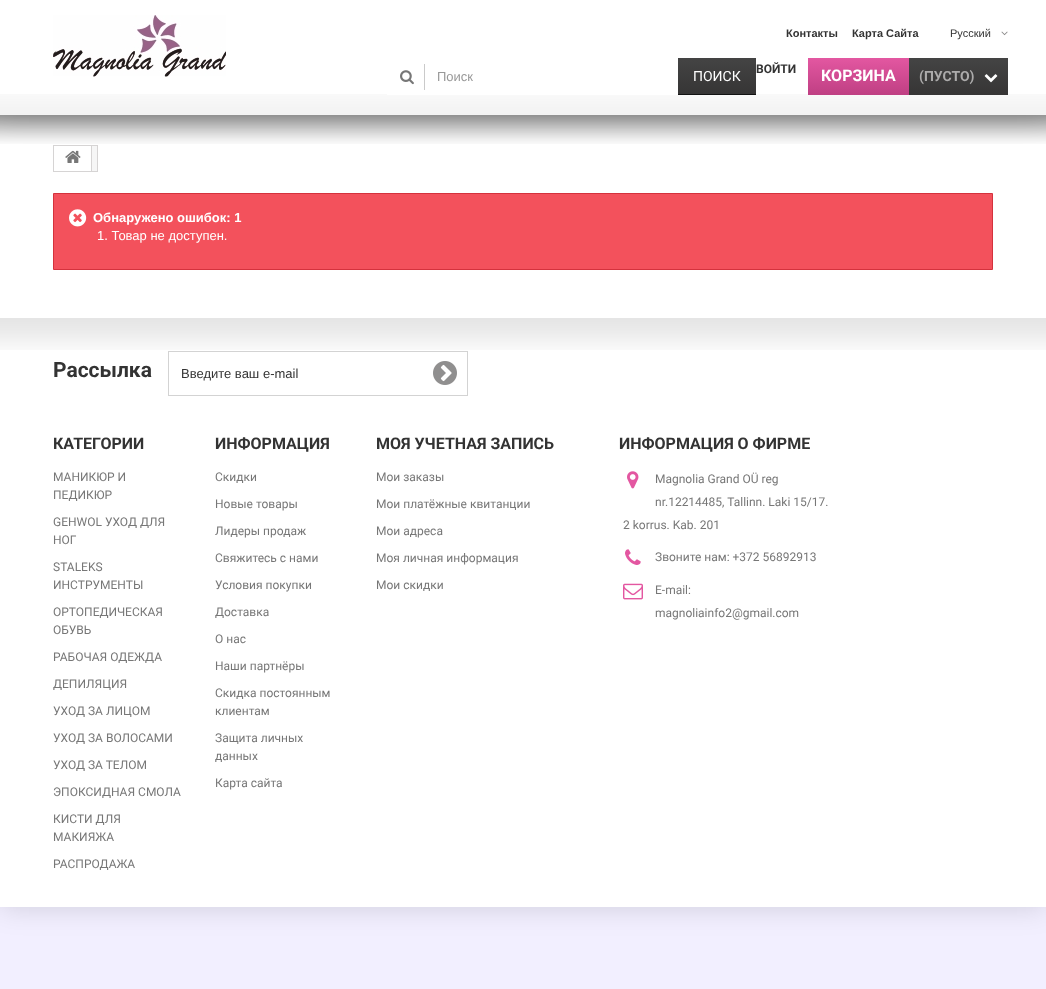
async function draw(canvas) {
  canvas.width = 1046
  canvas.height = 989
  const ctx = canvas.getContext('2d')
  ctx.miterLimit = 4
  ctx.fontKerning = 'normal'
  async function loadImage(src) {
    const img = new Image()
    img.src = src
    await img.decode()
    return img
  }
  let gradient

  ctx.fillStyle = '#f2efff'
  ctx.fillRect(0, 0, 1046, 989)
  ctx.fillStyle = '#00000024'
  ctx.filter = 'blur(14.5px)'
  ctx.beginPath()
  ctx.rect(0, 115, 1046, 792)
  ctx.fill()
  ctx.filter = 'none'
  ctx.fillStyle = '#fff'
  ctx.fillRect(0, 115, 1046, 792)
  ctx.fillStyle = '#f6f6f6'
  ctx.fillRect(92, 146, 5, 25)
  ctx.strokeStyle = '#d6d4d4'
  ctx.strokeRect(53.5, 145.5, 44, 26)
  ctx.fillStyle = '#d6d4d4'
  ctx.fillRect(91, 146, 1, 25)
  ctx.drawImage(await loadImage('image6.png'), 65, 150, 16, 13)
  ctx.fillStyle = '#00000024'
  ctx.filter = 'blur(14.5px)'
  ctx.beginPath()
  ctx.rect(0, 0, 1046, 115)
  ctx.fill()
  ctx.filter = 'none'
  ctx.fillStyle = '#fff'
  ctx.fillRect(0, 0, 1046, 115)
  ctx.drawImage(await loadImage('image0.png'), 0, 94, 1046, 21)
  ctx.drawImage(await loadImage('image1.png'), 53, 15, 173, 62)
  ctx.font = 'bold 11px Liberation Sans'
  ctx.fillStyle = '#333'
  ctx.fillText('Контакты', 786, 37)
  ctx.fillText('Карта Сайта', 852, 37)
  ctx.font = '11px Liberation Sans'
  ctx.fillText('Русский', 950, 37)
  ctx.drawImage(await loadImage('image2.png'), 1001, 31, 7, 5)
  ctx.fillStyle = '#fff'
  ctx.fillRect(387, 94, 291, 1)
  ctx.fillStyle = '#cacaca'
  ctx.fillRect(424, 64, 1, 26)
  ctx.drawImage(await loadImage('image3.png'), 400, 70, 14, 15)
  ctx.font = '13px Liberation Sans'
  ctx.fillStyle = '#999'
  ctx.fillText('Поиск', 437, 81)
  gradient = ctx.createLinearGradient(717, 58, 717, 94)
  gradient.addColorStop(0, '#444')
  gradient.addColorStop(1, '#363535')
  ctx.fillStyle = gradient
  ctx.fillRect(678, 58, 78, 36)
  ctx.fillStyle = '#121212'
  ctx.fillRect(678, 94, 78, 1)
  ctx.font = '14px Roboto'
  ctx.fillStyle = '#fff'
  ctx.fillText('ПОИСК', 693, 81)
  ctx.font = 'bold 12px Roboto'
  ctx.fillStyle = '#333'
  ctx.fillText('ВОЙТИ', 756, 73)
  gradient = ctx.createLinearGradient(908, 58, 908, 95)
  gradient.addColorStop(0, '#444')
  gradient.addColorStop(1, '#363535')
  ctx.fillStyle = gradient
  ctx.fillRect(909, 58, 99, 37)
  gradient = ctx.createLinearGradient(859, 58, 859, 95)
  gradient.addColorStop(0, '#e357a1')
  gradient.addColorStop(1, '#bf3f83')
  ctx.fillStyle = gradient
  ctx.fillRect(808, 58, 101, 37)
  ctx.font = 'bold 16px Roboto'
  ctx.fillStyle = '#fff'
  ctx.fillText('КОРЗИНА', 821, 81)
  ctx.font = 'bold 14px Roboto'
  ctx.fillStyle = '#acabab'
  ctx.fillText('(ПУСТО)', 919, 81)
  ctx.drawImage(await loadImage('image4.png'), 984, 74, 14, 9)
  ctx.drawImage(await loadImage('image5.png'), 0, 115, 1046, 29)
  ctx.fillStyle = '#f3515c'
  ctx.beginPath()
  ctx.rect(53.5, 193.5, 939, 76)
  ctx.fill()
  ctx.strokeStyle = '#d4323d'
  ctx.stroke()
  ctx.drawImage(await loadImage('image7.png'), 69, 209, 18, 18)
  ctx.font = 'bold 13px Liberation Sans'
  ctx.fillStyle = '#fff'
  ctx.fillText('Обнаружено ошибок: 1', 93, 222)
  ctx.font = '13px Liberation Sans'
  ctx.fillText('1. Товар не доступен.', 97, 240)
  ctx.drawImage(await loadImage('image8.png'), 0, 318, 1046, 32)
  ctx.font = 'bold 21px Roboto'
  ctx.fillStyle = '#333'
  ctx.fillText('Рассылка', 53, 377)
  ctx.strokeStyle = '#d3d3d3'
  ctx.strokeRect(168.5, 351.5, 299, 44)
  ctx.font = '13px Liberation Sans'
  ctx.fillText('Введите ваш e-mail', 181, 378)
  ctx.drawImage(await loadImage('image9.png'), 433, 361, 24, 24)
  ctx.font = 'bold 16px Roboto'
  ctx.fillText('КАТЕГОРИИ', 53, 449)
  ctx.font = '12px Roboto'
  ctx.fillStyle = '#777'
  ctx.fillText('МАНИКЮР И', 53, 481)
  ctx.fillText('ПЕДИКЮР', 53, 499)
  ctx.fillText('GEHWOL УХОД ДЛЯ', 53, 526)
  ctx.fillText('НОГ', 53, 544)
  ctx.fillText('STALEKS', 53, 571)
  ctx.fillText('ИНСТРУМЕНТЫ', 53, 589)
  ctx.fillText('ОРТОПЕДИЧЕСКАЯ', 53, 616)
  ctx.fillText('ОБУВЬ', 53, 634)
  ctx.fillText('РАБОЧАЯ ОДЕЖДА', 53, 661)
  ctx.fillText('ДЕПИЛЯЦИЯ', 53, 688)
  ctx.fillText('УХОД ЗА ЛИЦОМ', 53, 715)
  ctx.fillText('УХОД ЗА ВОЛОСАМИ', 53, 742)
  ctx.fillText('УХОД ЗА ТЕЛОМ', 53, 769)
  ctx.fillText('ЭПОКСИДНАЯ СМОЛА', 53, 796)
  ctx.fillText('КИСТИ ДЛЯ', 53, 823)
  ctx.fillText('МАКИЯЖА', 53, 841)
  ctx.fillText('РАСПРОДАЖА', 53, 868)
  ctx.font = 'bold 16px Roboto'
  ctx.fillStyle = '#333'
  ctx.fillText('ИНФОРМАЦИЯ', 215, 449)
  ctx.font = '12px Roboto'
  ctx.fillStyle = '#777'
  ctx.fillText('Скидки', 215, 481)
  ctx.fillText('Новые товары', 215, 508)
  ctx.fillText('Лидеры продаж', 215, 535)
  ctx.fillText('Свяжитесь с нами', 215, 562)
  ctx.fillText('Условия покупки', 215, 589)
  ctx.fillText('Доставка', 215, 616)
  ctx.fillText('О нас', 215, 643)
  ctx.fillText('Наши партнёры', 215, 670)
  ctx.fillText('Скидка постоянным', 215, 697)
  ctx.fillText('клиентам', 215, 715)
  ctx.fillText('Защита личных', 215, 742)
  ctx.fillText('данных', 215, 760)
  ctx.fillText('Карта сайта', 215, 787)
  ctx.font = 'bold 16px Roboto'
  ctx.fillStyle = '#333'
  ctx.fillText('МОЯ УЧЕТНАЯ ЗАПИСЬ', 376, 449)
  ctx.font = '12px Roboto'
  ctx.fillStyle = '#777'
  ctx.fillText('Мои заказы', 376, 481)
  ctx.fillText('Мои платёжные квитанции', 376, 508)
  ctx.fillText('Мои адреса', 376, 535)
  ctx.fillText('Моя личная информация', 376, 562)
  ctx.fillText('Мои скидки', 376, 589)
  ctx.font = 'bold 16px Roboto'
  ctx.fillStyle = '#333'
  ctx.fillText('ИНФОРМАЦИЯ О ФИРМЕ', 619, 449)
  ctx.drawImage(await loadImage('image10.png'), 627, 471, 12, 18)
  ctx.font = '12px Roboto'
  ctx.fillStyle = '#777'
  ctx.fillText('Magnolia Grand OÜ reg', 655, 483)
  ctx.fillText('nr.12214485, Tallinn. Laki 15/17.', 655, 506)
  ctx.fillText('2 korrus. Kab. 201', 623, 529)
  ctx.drawImage(await loadImage('image11.png'), 625, 549, 16, 16)
  ctx.fillText('Звоните нам: +372 56892913', 655, 561)
  ctx.drawImage(await loadImage('image12.png'), 623, 583, 20, 17)
  ctx.fillText('E-mail:', 655, 594)
  ctx.fillText('magnoliainfo2@gmail.com', 655, 617)
}

draw(document.querySelector('canvas'))
